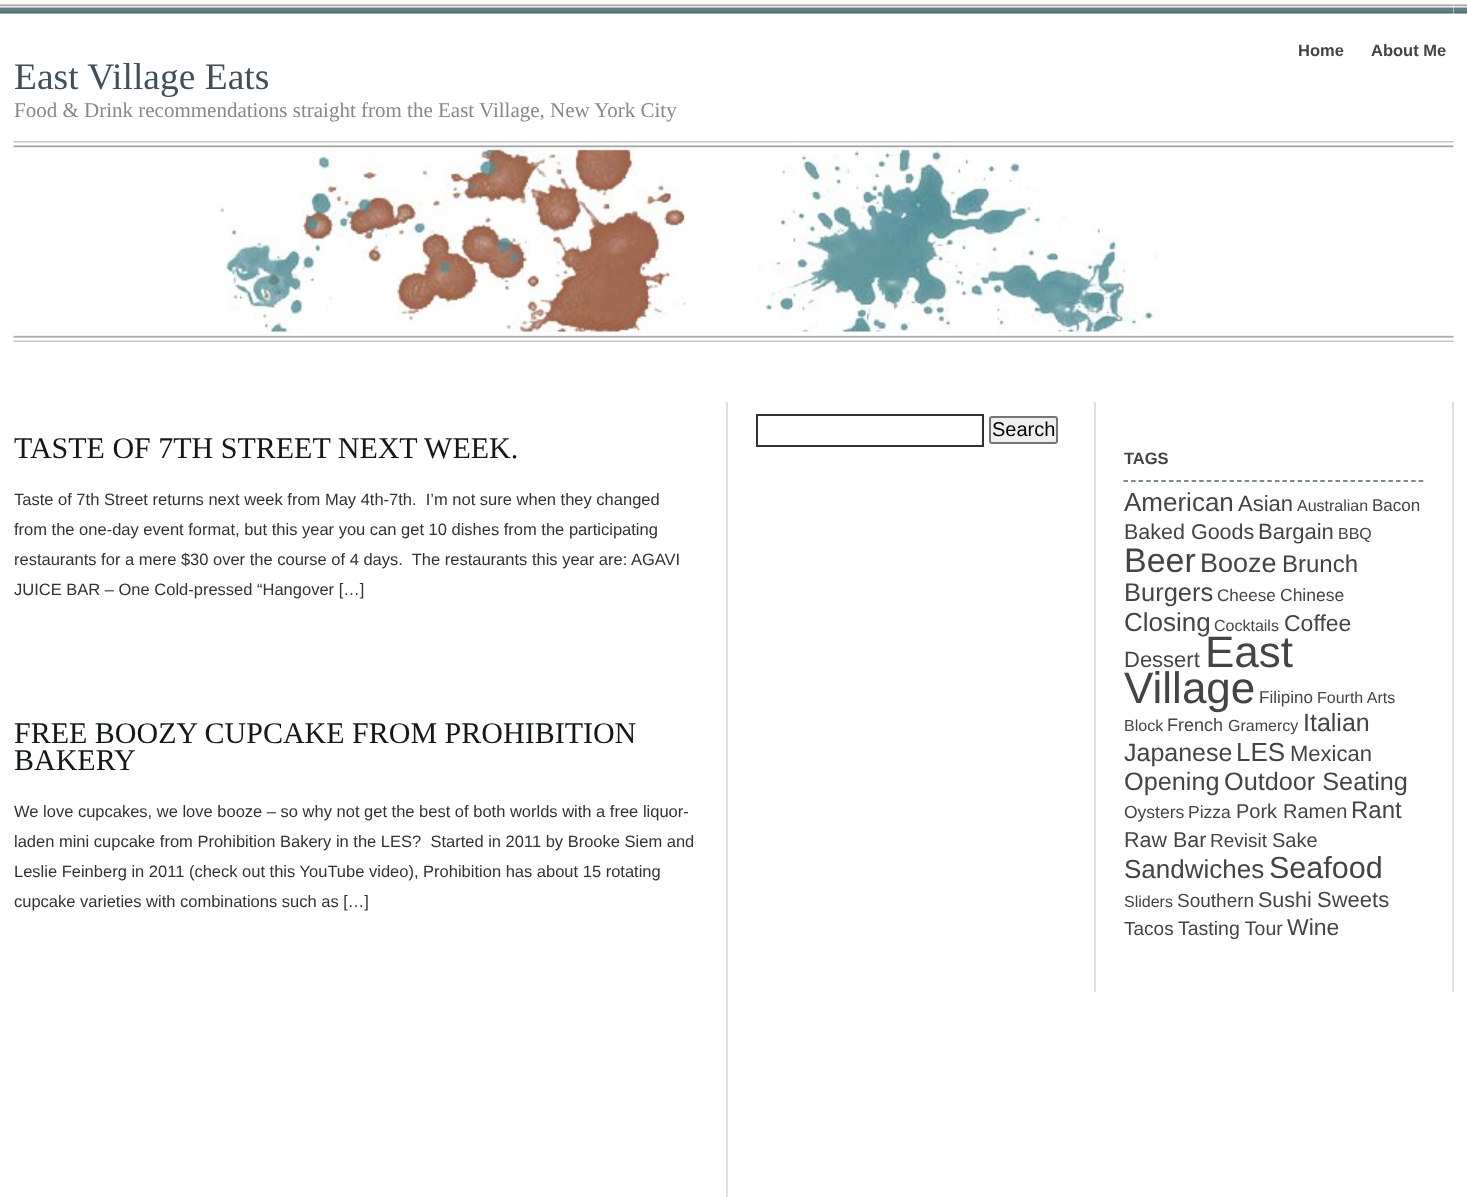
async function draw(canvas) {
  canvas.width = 1467
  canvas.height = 1197
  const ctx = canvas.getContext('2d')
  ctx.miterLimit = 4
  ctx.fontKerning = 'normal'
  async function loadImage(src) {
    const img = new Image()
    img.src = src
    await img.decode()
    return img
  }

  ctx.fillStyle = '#fff'
  ctx.fillRect(0, 0, 1467, 1197)
  ctx.drawImage(await loadImage('image0.png'), 0, 4, 1467, 10)
  ctx.fillRect(14, 4, 1440, 10)
  ctx.drawImage(await loadImage('image1.png'), 13, 4, 1441, 10)
  ctx.font = 'bold 16.5px Liberation Sans'
  ctx.fillStyle = '#444'
  ctx.fillText('Home', 1298, 56)
  ctx.fillText('About Me', 1371, 56)
  ctx.font = '37.5px Liberation Serif'
  ctx.fillStyle = '#414f59'
  ctx.fillText('East Village Eats', 14, 89)
  ctx.font = '21px Liberation Serif'
  ctx.fillStyle = '#888'
  ctx.fillText('Food & Drink recommendations straight from the East Village, New York City', 14, 117)
  ctx.drawImage(await loadImage('image2.png'), 13, 141, 1441, 201)
  ctx.fillStyle = '#e2ddde'
  ctx.fillRect(726, 402, 2, 795)
  ctx.strokeStyle = '#323232'
  ctx.lineWidth = 2
  ctx.strokeRect(757, 415, 226, 31)
  ctx.fillStyle = '#efefef'
  ctx.beginPath()
  ctx.roundRect(990, 417, 67, 26, 2)
  ctx.fill()
  ctx.strokeStyle = '#767676'
  ctx.stroke()
  ctx.font = '20px Liberation Sans'
  ctx.fillStyle = '#000'
  ctx.fillText('Search', 992, 436)
  ctx.font = '30px Liberation Serif'
  ctx.fillStyle = '#14181a'
  ctx.fillText('TASTE OF 7TH STREET NEXT WEEK.', 14, 458)
  ctx.font = '16.5px Liberation Sans'
  ctx.fillStyle = '#323232'
  ctx.fillText('Taste of 7th Street returns next week from May 4th-7th.  I’m not sure when they changed', 14, 505)
  ctx.fillText('from the one-day event format, but this year you can get 10 dishes from the participating', 14, 535)
  ctx.fillText('restaurants for a mere $30 over the course of 4 days.  The restaurants this year are: AGAVI', 14, 565)
  ctx.fillText('JUICE BAR – One Cold-pressed “Hangover […]', 14, 595)
  ctx.font = '30px Liberation Serif'
  ctx.fillStyle = '#14181a'
  ctx.fillText('FREE BOOZY CUPCAKE FROM PROHIBITION', 14, 743)
  ctx.fillText('BAKERY', 14, 770)
  ctx.font = '16.5px Liberation Sans'
  ctx.fillStyle = '#323232'
  ctx.fillText('We love cupcakes, we love booze – so why not get the best of both worlds with a free liquor-', 14, 817)
  ctx.fillText('laden mini cupcake from Prohibition Bakery in the LES?  Started in 2011 by Brooke Siem and', 14, 847)
  ctx.fillText('Leslie Feinberg in 2011 (check out this YouTube video), Prohibition has about 15 rotating', 14, 877)
  ctx.fillText('cupcake varieties with combinations such as […]', 14, 907)
  ctx.fillStyle = '#e2ddde'
  ctx.fillRect(1452, 402, 2, 590)
  ctx.fillRect(1094, 402, 2, 590)
  ctx.beginPath()
  ctx.moveTo(1123.5, 481)
  ctx.lineTo(1423.5, 481)
  ctx.strokeStyle = '#4c666a'
  ctx.lineWidth = 1.5
  ctx.setLineDash([4.5, 3.07])
  ctx.stroke()
  ctx.font = 'bold 16.5px Liberation Sans'
  ctx.fillStyle = '#444'
  ctx.fillText('TAGS', 1124, 464)
  ctx.font = '26px Liberation Sans'
  ctx.fillText('American', 1124, 511)
  ctx.font = '22px Liberation Sans'
  ctx.fillText('Asian', 1238, 511)
  ctx.font = '16px Liberation Sans'
  ctx.fillText('Australian', 1297, 511)
  ctx.font = '17px Liberation Sans'
  ctx.fillText('Bacon', 1372, 511)
  ctx.font = '21.5px Liberation Sans'
  ctx.fillText('Baked Goods', 1124, 539)
  ctx.font = '22px Liberation Sans'
  ctx.fillText('Bargain', 1258, 539)
  ctx.font = '16px Liberation Sans'
  ctx.fillText('BBQ', 1338, 539)
  ctx.font = '34px Liberation Sans'
  ctx.fillText('Beer', 1124, 572)
  ctx.font = '27px Liberation Sans'
  ctx.fillText('Booze', 1200, 572)
  ctx.font = '24px Liberation Sans'
  ctx.fillText('Brunch', 1282, 572)
  ctx.font = '25.5px Liberation Sans'
  ctx.fillText('Burgers', 1124, 601)
  ctx.font = '17px Liberation Sans'
  ctx.fillText('Cheese', 1217, 601)
  ctx.font = '17.5px Liberation Sans'
  ctx.fillText('Chinese', 1280, 601)
  ctx.font = '26px Liberation Sans'
  ctx.fillText('Closing', 1124, 631)
  ctx.font = '16px Liberation Sans'
  ctx.fillText('Cocktails', 1214, 631)
  ctx.font = '23px Liberation Sans'
  ctx.fillText('Coffee', 1284, 631)
  ctx.font = '22px Liberation Sans'
  ctx.fillText('Dessert', 1124, 667)
  ctx.font = '44px Liberation Sans'
  ctx.fillText('East', 1205, 667)
  ctx.fillText('Village', 1124, 703)
  ctx.font = '17px Liberation Sans'
  ctx.fillText('Filipino', 1259, 703)
  ctx.font = '16px Liberation Sans'
  ctx.fillText('Fourth Arts', 1317, 703)
  ctx.fillText('Block', 1124, 731)
  ctx.font = '18px Liberation Sans'
  ctx.fillText('French', 1167, 731)
  ctx.font = '16px Liberation Sans'
  ctx.fillText('Gramercy', 1228, 731)
  ctx.font = '25px Liberation Sans'
  ctx.fillText('Italian', 1303, 731)
  ctx.fillText('Japanese', 1124, 761)
  ctx.font = '26px Liberation Sans'
  ctx.fillText('LES', 1236, 761)
  ctx.font = '22px Liberation Sans'
  ctx.fillText('Mexican', 1290, 761)
  ctx.font = '25.25px Liberation Sans'
  ctx.fillText('Opening', 1124, 790)
  ctx.fillText('Outdoor Seating', 1224, 790)
  ctx.font = '17.5px Liberation Sans'
  ctx.fillText('Oysters', 1124, 818)
  ctx.fillText('Pizza', 1188, 818)
  ctx.font = '20px Liberation Sans'
  ctx.fillText('Pork', 1236, 818)
  ctx.fillText('Ramen', 1283, 818)
  ctx.font = '24px Liberation Sans'
  ctx.fillText('Rant', 1351, 818)
  ctx.font = '21.5px Liberation Sans'
  ctx.fillText('Raw Bar', 1124, 847)
  ctx.font = '19px Liberation Sans'
  ctx.fillText('Revisit', 1210, 847)
  ctx.font = '20px Liberation Sans'
  ctx.fillText('Sake', 1272, 847)
  ctx.font = '26px Liberation Sans'
  ctx.fillText('Sandwiches', 1124, 878)
  ctx.font = '30.5px Liberation Sans'
  ctx.fillText('Seafood', 1269, 878)
  ctx.font = '16px Liberation Sans'
  ctx.fillText('Sliders', 1124, 907)
  ctx.font = '19px Liberation Sans'
  ctx.fillText('Southern', 1177, 907)
  ctx.font = '21.5px Liberation Sans'
  ctx.fillText('Sushi', 1258, 907)
  ctx.font = '22px Liberation Sans'
  ctx.fillText('Sweets', 1317, 907)
  ctx.font = '19px Liberation Sans'
  ctx.fillText('Tacos', 1124, 935)
  ctx.font = '19.5px Liberation Sans'
  ctx.fillText('Tasting Tour', 1178, 935)
  ctx.font = '23px Liberation Sans'
  ctx.fillText('Wine', 1287, 935)
}

draw(document.querySelector('canvas'))
